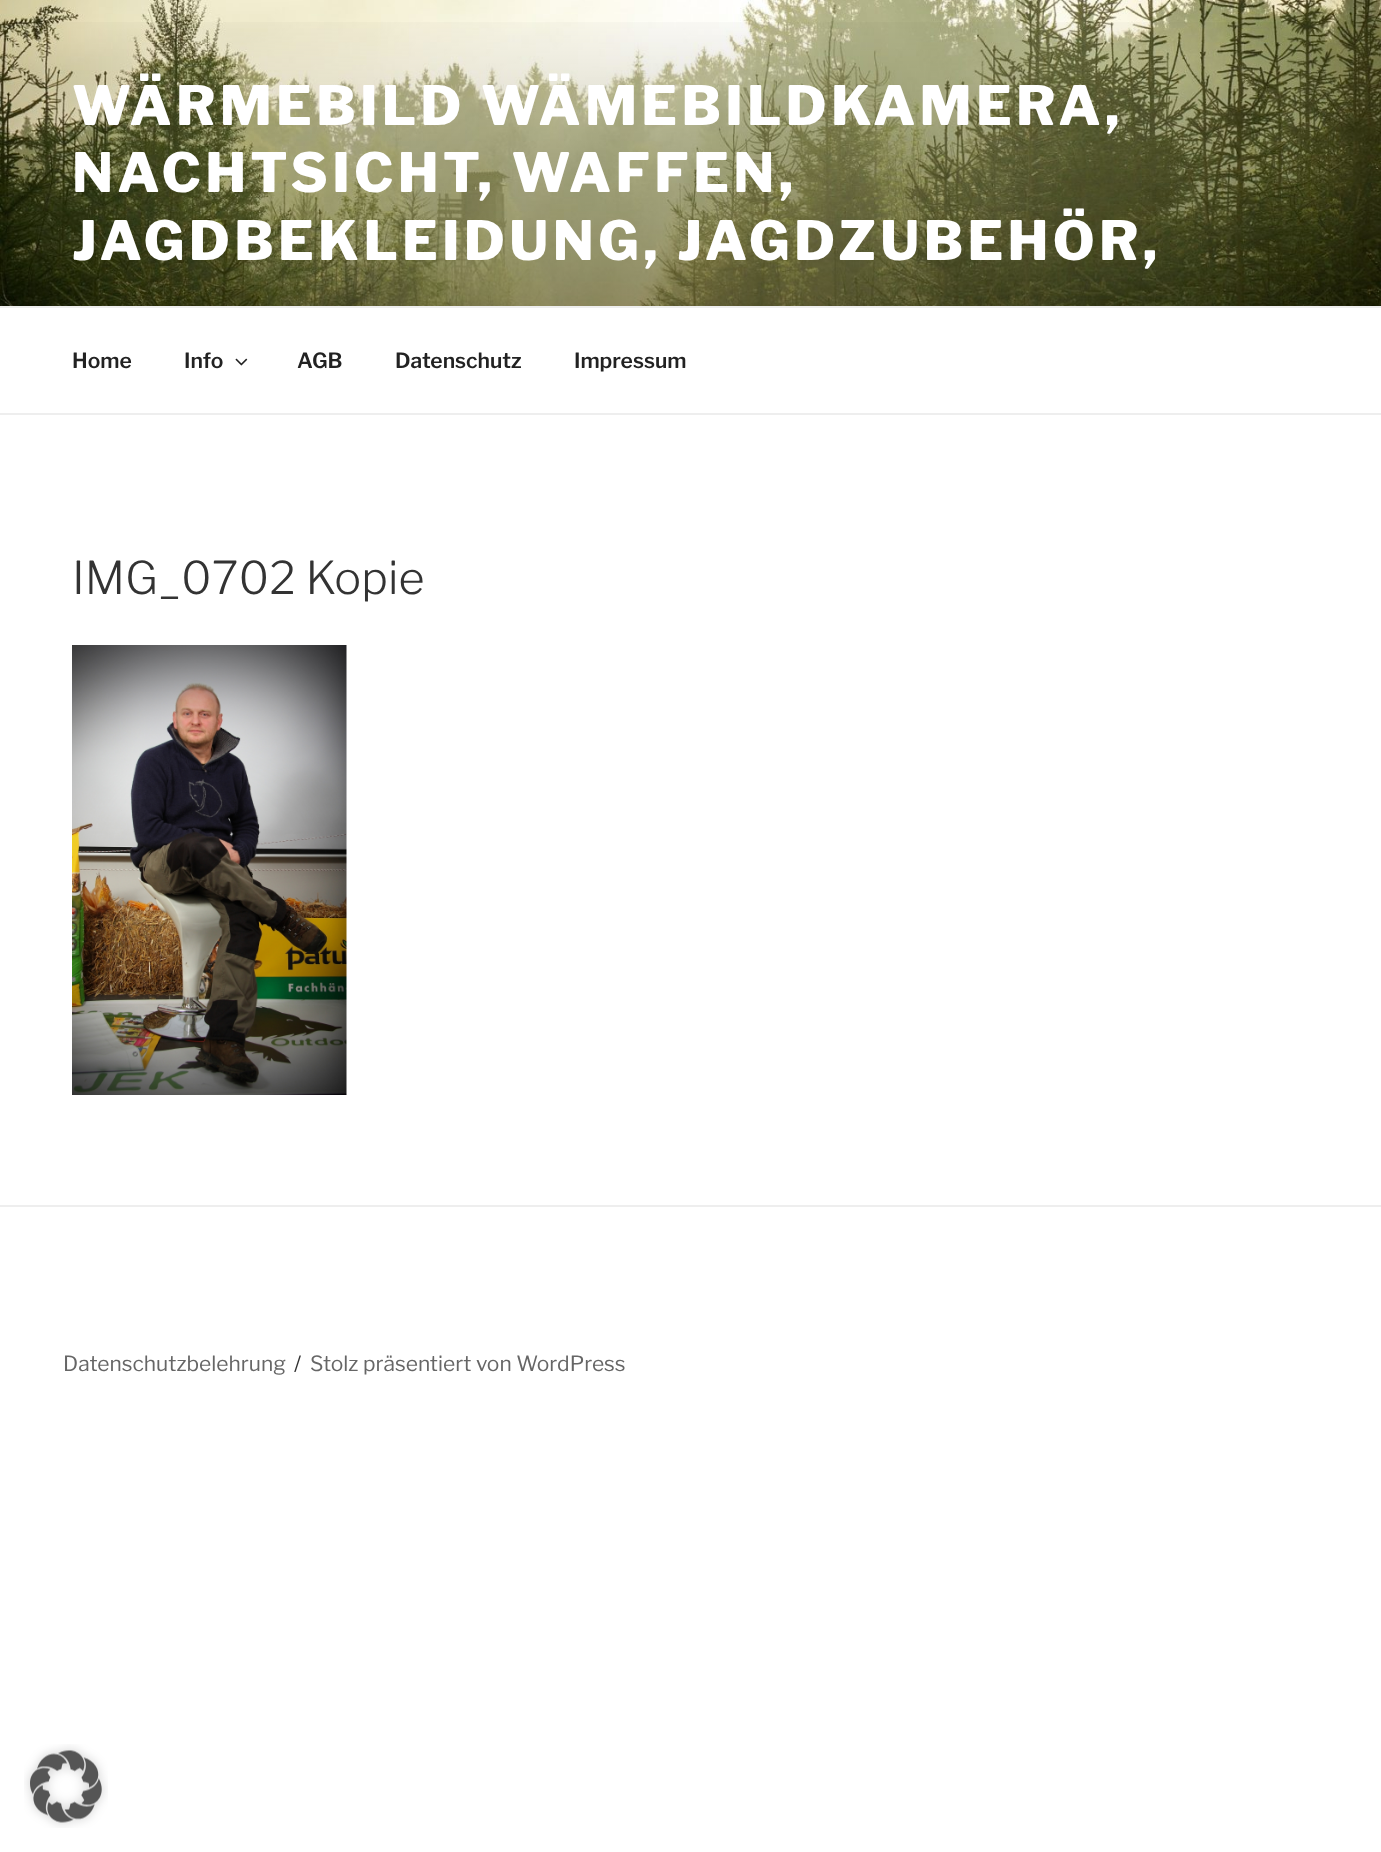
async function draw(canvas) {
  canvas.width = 1381
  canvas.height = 1852
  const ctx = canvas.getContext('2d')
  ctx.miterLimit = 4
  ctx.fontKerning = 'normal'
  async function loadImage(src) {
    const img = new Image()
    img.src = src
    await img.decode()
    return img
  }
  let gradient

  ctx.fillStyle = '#fff'
  ctx.fillRect(0, 0, 1381, 1852)
  ctx.drawImage(await loadImage('image0.png'), 0, 0, 1381, 306)
  gradient = ctx.createLinearGradient(691, 0, 691, 414)
  gradient.addColorStop(0, '#00000000')
  gradient.addColorStop(0.75, '#0000004d')
  gradient.addColorStop(1, '#0000004d')
  ctx.fillStyle = gradient
  ctx.fillRect(0, 22, 1381, 284)
  ctx.letterSpacing = '4.3px'
  ctx.font = '800 54px Libre Franklin'
  ctx.fillStyle = '#fff'
  ctx.fillText('WÄRMEBILD WÄMEBILDKAMERA,', 72, 125)
  ctx.fillText('NACHTSICHT, WAFFEN,', 72, 192)
  ctx.fillText('JAGDBEKLEIDUNG, JAGDZUBEHÖR,', 72, 260)
  ctx.fillStyle = '#eee'
  ctx.fillRect(0, 306, 1381, 2)
  ctx.fillRect(0, 413, 1381, 2)
  ctx.letterSpacing = '0px'
  ctx.font = '600 21px Libre Franklin'
  ctx.fillStyle = '#222'
  ctx.fillText('Home', 72, 368)
  ctx.fillText('Info', 184, 368)
  ctx.drawImage(await loadImage('image1.png'), 235, 358, 13, 8)
  ctx.fillText('AGB', 297, 368)
  ctx.fillText('Datenschutz', 395, 368)
  ctx.fillText('Impressum', 574, 368)
  ctx.font = '300 45px Libre Franklin'
  ctx.fillStyle = '#333'
  ctx.fillText('IMG_0702 Kopie', 72, 594)
  ctx.drawImage(await loadImage('image2.png'), 72, 645, 275, 450)
  ctx.fillStyle = '#eee'
  ctx.fillRect(0, 1205, 1381, 2)
  ctx.font = '21px Libre Franklin'
  ctx.fillStyle = '#666'
  ctx.fillText('Datenschutzbelehrung', 63, 1371)
  ctx.fillStyle = '#333'
  ctx.fillText('/', 294, 1371)
  ctx.fillStyle = '#666'
  ctx.fillText('Stolz präsentiert von WordPress', 310, 1371)
  ctx.drawImage(await loadImage('image3.png'), 24, 1744, 84, 84)
}

draw(document.querySelector('canvas'))
